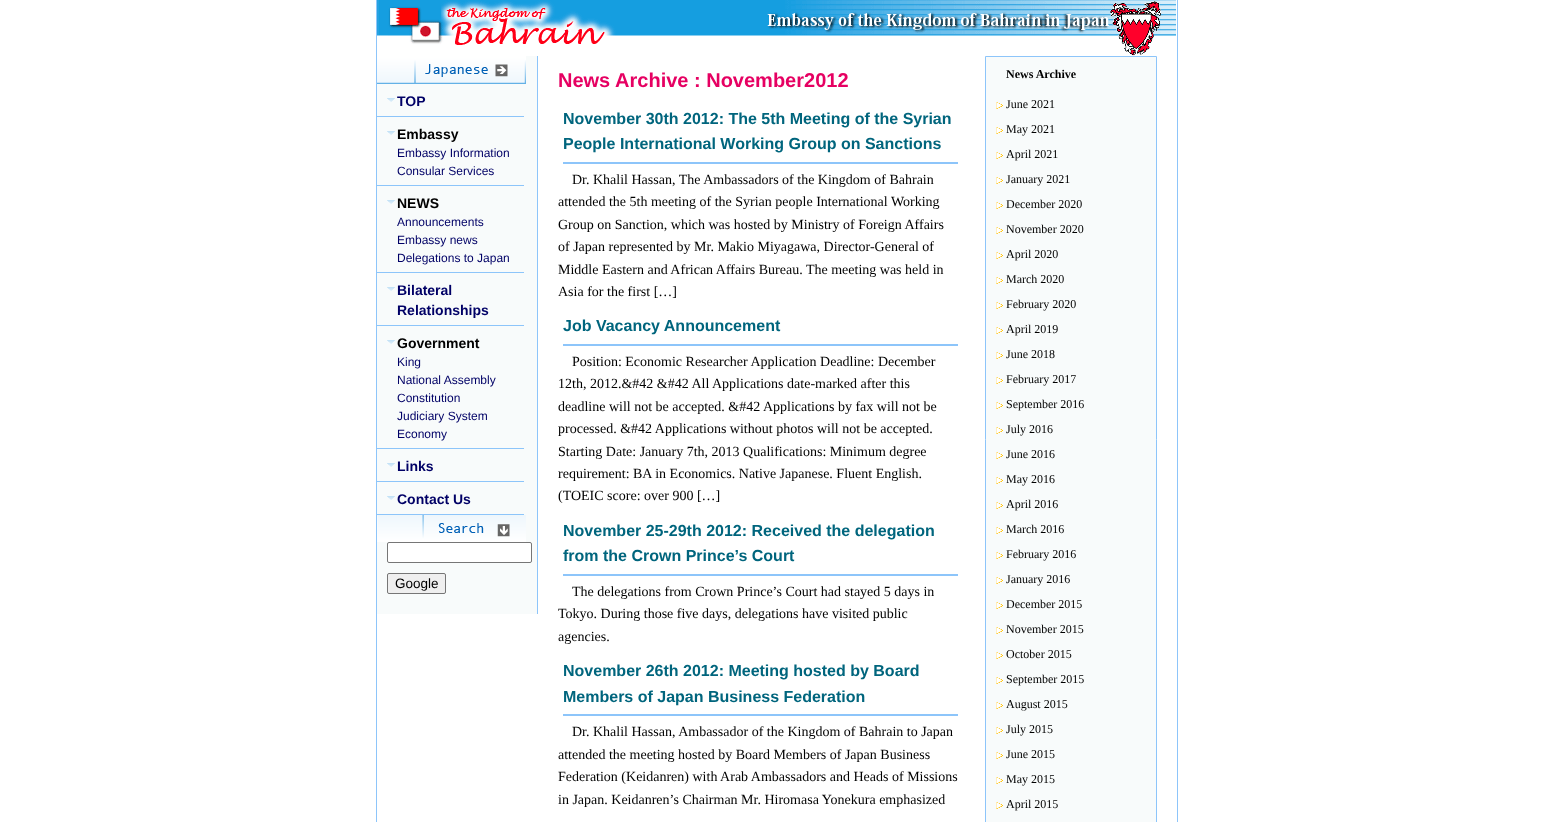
async function draw(canvas) {
  canvas.width = 1554
  canvas.height = 822
  const ctx = canvas.getContext('2d')
  ctx.miterLimit = 4
  ctx.fontKerning = 'normal'
  async function loadImage(src) {
    const img = new Image()
    img.src = src
    await img.decode()
    return img
  }

  ctx.fillStyle = '#fff'
  ctx.fillRect(0, 0, 1554, 822)
  ctx.fillStyle = '#8dc5fa'
  ctx.fillRect(1177, 0, 1, 822)
  ctx.fillRect(376, 0, 1, 822)
  ctx.drawImage(await loadImage('image0.png'), 377, 0, 799, 56)
  ctx.fillStyle = '#f8fbfb'
  ctx.fillRect(377, 56, 160, 558)
  ctx.fillStyle = '#8dc5fa'
  ctx.fillRect(537, 56, 1, 558)
  ctx.drawImage(await loadImage('image1.png'), 377, 56, 149, 28)
  ctx.drawImage(await loadImage('image2.png'), 387, 98, 8, 4)
  ctx.fillRect(377, 116, 147, 1)
  ctx.font = 'bold 14px Liberation Sans'
  ctx.fillStyle = '#006'
  ctx.fillText('TOP', 397, 106)
  ctx.drawImage(await loadImage('image2.png'), 387, 131, 8, 4)
  ctx.fillStyle = '#8dc5fa'
  ctx.fillRect(377, 185, 147, 1)
  ctx.fillStyle = '#000'
  ctx.fillText('Embassy', 397, 139)
  ctx.font = '12px Liberation Sans'
  ctx.fillStyle = '#006'
  ctx.fillText('Embassy Information', 397, 157)
  ctx.fillText('Consular Services', 397, 175)
  ctx.drawImage(await loadImage('image2.png'), 387, 200, 8, 4)
  ctx.fillStyle = '#8dc5fa'
  ctx.fillRect(377, 272, 147, 1)
  ctx.font = 'bold 14px Liberation Sans'
  ctx.fillStyle = '#000'
  ctx.fillText('NEWS', 397, 208)
  ctx.font = '12px Liberation Sans'
  ctx.fillStyle = '#006'
  ctx.fillText('Announcements', 397, 226)
  ctx.fillText('Embassy news', 397, 244)
  ctx.fillText('Delegations to Japan', 397, 262)
  ctx.drawImage(await loadImage('image2.png'), 387, 287, 8, 4)
  ctx.fillStyle = '#8dc5fa'
  ctx.fillRect(377, 325, 147, 1)
  ctx.font = 'bold 14px Liberation Sans'
  ctx.fillStyle = '#006'
  ctx.fillText('Bilateral', 397, 295)
  ctx.fillText('Relationships', 397, 315)
  ctx.drawImage(await loadImage('image2.png'), 387, 340, 8, 4)
  ctx.fillStyle = '#8dc5fa'
  ctx.fillRect(377, 448, 147, 1)
  ctx.fillStyle = '#000'
  ctx.fillText('Government', 397, 348)
  ctx.font = '12px Liberation Sans'
  ctx.fillStyle = '#006'
  ctx.fillText('King', 397, 366)
  ctx.fillText('National Assembly', 397, 384)
  ctx.fillText('Constitution', 397, 402)
  ctx.fillText('Judiciary System', 397, 420)
  ctx.fillText('Economy', 397, 438)
  ctx.drawImage(await loadImage('image2.png'), 387, 463, 8, 4)
  ctx.fillStyle = '#8dc5fa'
  ctx.fillRect(377, 481, 147, 1)
  ctx.font = 'bold 14px Liberation Sans'
  ctx.fillStyle = '#006'
  ctx.fillText('Links', 397, 471)
  ctx.drawImage(await loadImage('image2.png'), 387, 496, 8, 4)
  ctx.fillStyle = '#8dc5fa'
  ctx.fillRect(377, 514, 147, 1)
  ctx.fillStyle = '#006'
  ctx.fillText('Contact Us', 397, 504)
  ctx.drawImage(await loadImage('image3.png'), 377, 515, 149, 27)
  ctx.fillStyle = '#fff'
  ctx.beginPath()
  ctx.roundRect(387.5, 542.5, 144, 20, 1.5)
  ctx.fill()
  ctx.strokeStyle = '#767676'
  ctx.stroke()
  ctx.fillStyle = '#efefef'
  ctx.beginPath()
  ctx.roundRect(387.5, 573.5, 58, 20, 1.5)
  ctx.fill()
  ctx.stroke()
  ctx.font = '13.5px Liberation Sans'
  ctx.fillStyle = '#000'
  ctx.fillText('Google', 395, 588)
  ctx.font = 'bold 20px Liberation Sans'
  ctx.fillStyle = '#e60062'
  ctx.fillText('News Archive : November2012', 558, 87)
  ctx.fillStyle = '#8dc5fa'
  ctx.fillRect(563, 162, 395, 2)
  ctx.font = 'bold 16px Liberation Sans'
  ctx.fillStyle = '#00657d'
  ctx.fillText('November 30th 2012: The 5th Meeting of the Syrian', 563, 124)
  ctx.fillText('People International Working Group on Sanctions', 563, 149)
  ctx.font = '14px Liberation Serif'
  ctx.fillStyle = '#000'
  ctx.fillText('Dr. Khalil Hassan, The Ambassadors of the Kingdom of Bahrain', 572, 184)
  ctx.fillText('attended the 5th meeting of the Syrian people International Working', 558, 206)
  ctx.fillText('Group on Sanction, which was hosted by Ministry of Foreign Affairs', 558, 229)
  ctx.fillText('of Japan represented by Mr. Makio Miyagawa, Director-General of', 558, 251)
  ctx.fillText('Middle Eastern and African Affairs Bureau. The meeting was held in', 558, 274)
  ctx.fillText('Asia for the first […]', 558, 296)
  ctx.fillStyle = '#8dc5fa'
  ctx.fillRect(563, 344, 395, 2)
  ctx.font = 'bold 16px Liberation Sans'
  ctx.fillStyle = '#00657d'
  ctx.fillText('Job Vacancy Announcement', 563, 331)
  ctx.font = '14px Liberation Serif'
  ctx.fillStyle = '#000'
  ctx.fillText('Position: Economic Researcher Application Deadline: December', 572, 366)
  ctx.fillText('12th, 2012.&#42 &#42 All Applications date-marked after this', 558, 388)
  ctx.fillText('deadline will not be accepted. &#42 Applications by fax will not be', 558, 411)
  ctx.fillText('processed. &#42 Applications without photos will not be accepted.', 558, 433)
  ctx.fillText('Starting Date: January 7th, 2013 Qualifications: Minimum degree', 558, 456)
  ctx.fillText('requirement: BA in Economics. Native Japanese. Fluent English.', 558, 478)
  ctx.fillText('(TOEIC score: over 900 […]', 558, 500)
  ctx.fillStyle = '#8dc5fa'
  ctx.fillRect(563, 574, 395, 2)
  ctx.font = 'bold 16px Liberation Sans'
  ctx.fillStyle = '#00657d'
  ctx.fillText('November 25-29th 2012: Received the delegation', 563, 536)
  ctx.fillText('from the Crown Prince’s Court', 563, 561)
  ctx.font = '14px Liberation Serif'
  ctx.fillStyle = '#000'
  ctx.fillText('The delegations from Crown Prince’s Court had stayed 5 days in', 572, 596)
  ctx.fillText('Tokyo. During those five days, delegations have visited public', 558, 618)
  ctx.fillText('agencies.', 558, 641)
  ctx.fillStyle = '#8dc5fa'
  ctx.fillRect(563, 714, 395, 2)
  ctx.font = 'bold 16px Liberation Sans'
  ctx.fillStyle = '#00657d'
  ctx.fillText('November 26th 2012: Meeting hosted by Board', 563, 676)
  ctx.fillText('Members of Japan Business Federation', 563, 702)
  ctx.font = '14px Liberation Serif'
  ctx.fillStyle = '#000'
  ctx.fillText('Dr. Khalil Hassan, Ambassador of the Kingdom of Bahrain to Japan', 572, 736)
  ctx.fillText('attended the meeting hosted by Board Members of Japan Business', 558, 759)
  ctx.fillText('Federation (Keidanren) with Arab Ambassadors and Heads of Missions', 558, 781)
  ctx.fillText('in Japan. Keidanren’s Chairman Mr. Hiromasa Yonekura emphasized', 558, 804)
  ctx.fillStyle = '#f8fbfb'
  ctx.beginPath()
  ctx.rect(985.5, 56.5, 171, 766)
  ctx.fill()
  ctx.strokeStyle = '#8dc5fa'
  ctx.stroke()
  ctx.font = 'bold 12px Liberation Serif'
  ctx.fillStyle = '#000'
  ctx.fillText('News Archive', 1006, 78)
  ctx.drawImage(await loadImage('image4.png'), 996, 102, 7, 7)
  ctx.font = '12px Liberation Serif'
  ctx.fillText('June 2021', 1006, 108)
  ctx.drawImage(await loadImage('image4.png'), 996, 127, 7, 7)
  ctx.fillText('May 2021', 1006, 133)
  ctx.drawImage(await loadImage('image4.png'), 996, 152, 7, 7)
  ctx.fillText('April 2021', 1006, 158)
  ctx.drawImage(await loadImage('image4.png'), 996, 177, 7, 7)
  ctx.fillText('January 2021', 1006, 183)
  ctx.drawImage(await loadImage('image4.png'), 996, 202, 7, 7)
  ctx.fillText('December 2020', 1006, 208)
  ctx.drawImage(await loadImage('image4.png'), 996, 227, 7, 7)
  ctx.fillText('November 2020', 1006, 233)
  ctx.drawImage(await loadImage('image4.png'), 996, 252, 7, 7)
  ctx.fillText('April 2020', 1006, 258)
  ctx.drawImage(await loadImage('image4.png'), 996, 277, 7, 7)
  ctx.fillText('March 2020', 1006, 283)
  ctx.drawImage(await loadImage('image4.png'), 996, 302, 7, 7)
  ctx.fillText('February 2020', 1006, 308)
  ctx.drawImage(await loadImage('image4.png'), 996, 327, 7, 7)
  ctx.fillText('April 2019', 1006, 333)
  ctx.drawImage(await loadImage('image4.png'), 996, 352, 7, 7)
  ctx.fillText('June 2018', 1006, 358)
  ctx.drawImage(await loadImage('image4.png'), 996, 377, 7, 7)
  ctx.fillText('February 2017', 1006, 383)
  ctx.drawImage(await loadImage('image4.png'), 996, 402, 7, 7)
  ctx.fillText('September 2016', 1006, 408)
  ctx.drawImage(await loadImage('image4.png'), 996, 427, 7, 7)
  ctx.fillText('July 2016', 1006, 433)
  ctx.drawImage(await loadImage('image4.png'), 996, 452, 7, 7)
  ctx.fillText('June 2016', 1006, 458)
  ctx.drawImage(await loadImage('image4.png'), 996, 477, 7, 7)
  ctx.fillText('May 2016', 1006, 483)
  ctx.drawImage(await loadImage('image4.png'), 996, 502, 7, 7)
  ctx.fillText('April 2016', 1006, 508)
  ctx.drawImage(await loadImage('image4.png'), 996, 527, 7, 7)
  ctx.fillText('March 2016', 1006, 533)
  ctx.drawImage(await loadImage('image4.png'), 996, 552, 7, 7)
  ctx.fillText('February 2016', 1006, 558)
  ctx.drawImage(await loadImage('image4.png'), 996, 577, 7, 7)
  ctx.fillText('January 2016', 1006, 583)
  ctx.drawImage(await loadImage('image4.png'), 996, 602, 7, 7)
  ctx.fillText('December 2015', 1006, 608)
  ctx.drawImage(await loadImage('image4.png'), 996, 627, 7, 7)
  ctx.fillText('November 2015', 1006, 633)
  ctx.drawImage(await loadImage('image4.png'), 996, 652, 7, 7)
  ctx.fillText('October 2015', 1006, 658)
  ctx.drawImage(await loadImage('image4.png'), 996, 677, 7, 7)
  ctx.fillText('September 2015', 1006, 683)
  ctx.drawImage(await loadImage('image4.png'), 996, 702, 7, 7)
  ctx.fillText('August 2015', 1006, 708)
  ctx.drawImage(await loadImage('image4.png'), 996, 727, 7, 7)
  ctx.fillText('July 2015', 1006, 733)
  ctx.drawImage(await loadImage('image4.png'), 996, 752, 7, 7)
  ctx.fillText('June 2015', 1006, 758)
  ctx.drawImage(await loadImage('image4.png'), 996, 777, 7, 7)
  ctx.fillText('May 2015', 1006, 783)
  ctx.drawImage(await loadImage('image4.png'), 996, 802, 7, 7)
  ctx.fillText('April 2015', 1006, 808)
}

draw(document.querySelector('canvas'))
